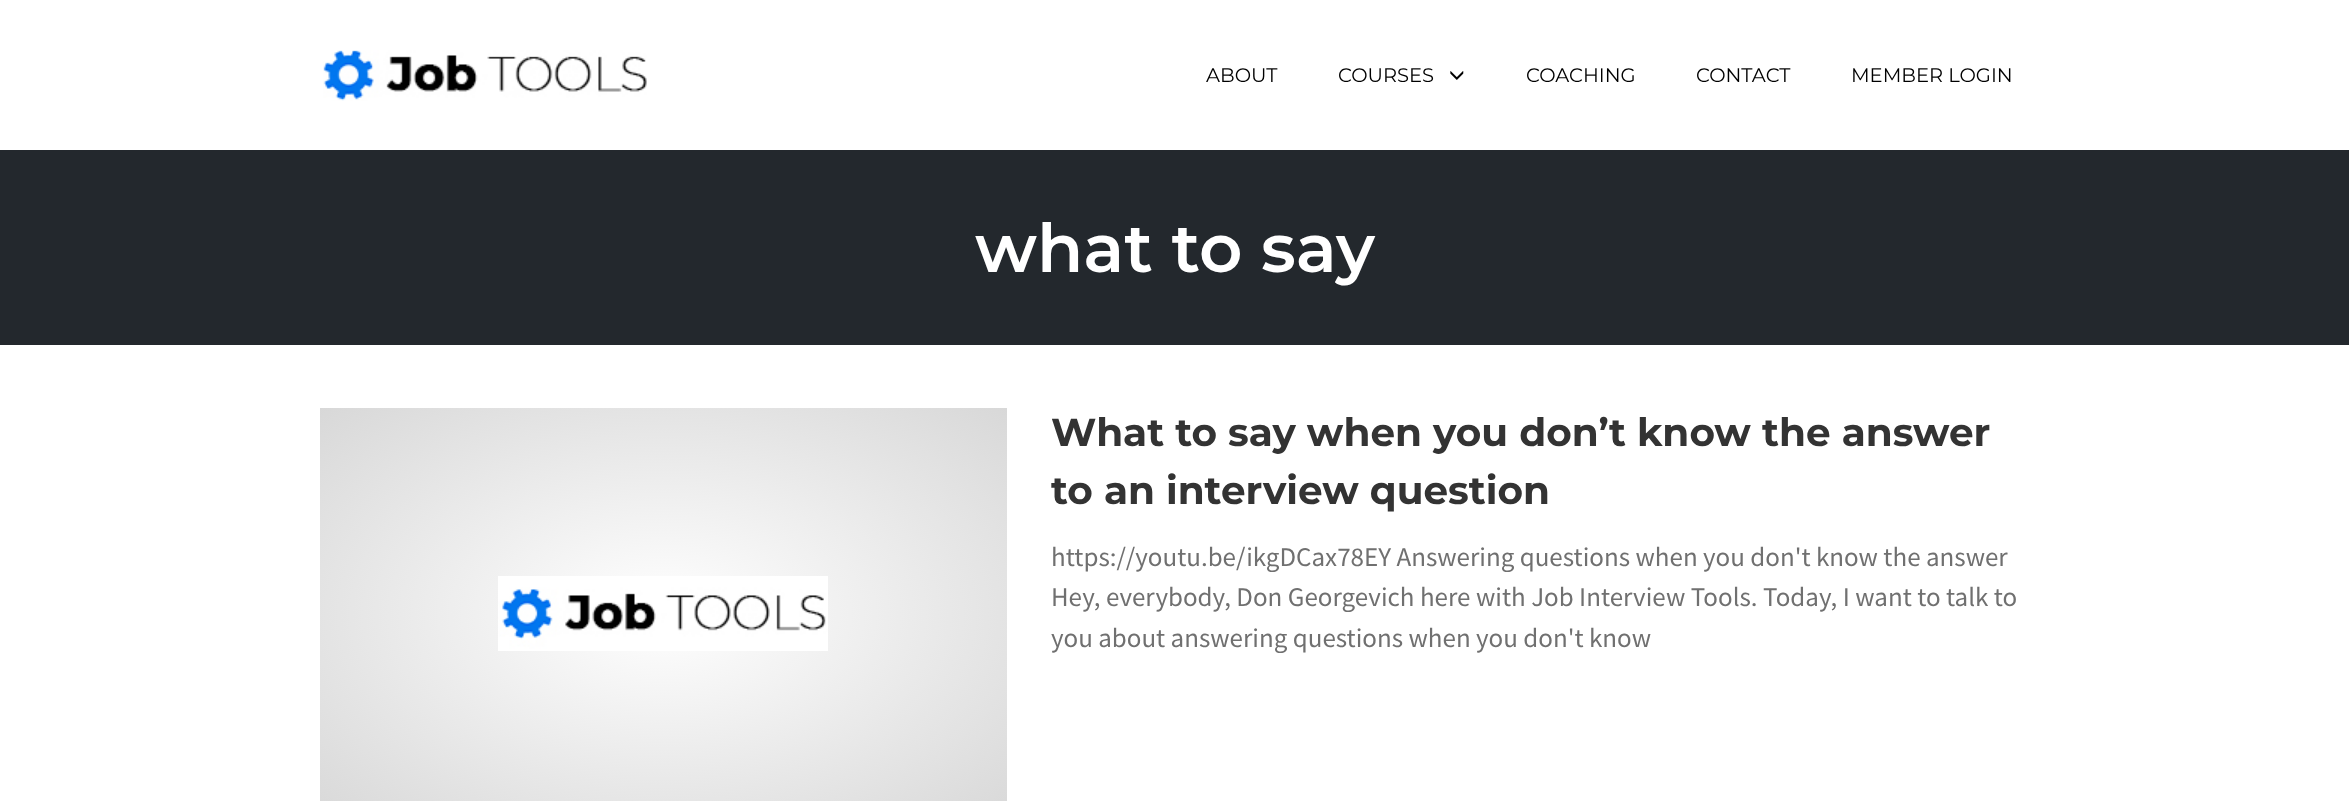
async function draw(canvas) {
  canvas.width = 2349
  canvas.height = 801
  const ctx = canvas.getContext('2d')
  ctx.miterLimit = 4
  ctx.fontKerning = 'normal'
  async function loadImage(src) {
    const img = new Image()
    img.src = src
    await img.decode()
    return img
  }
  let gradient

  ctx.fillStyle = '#fff'
  ctx.fillRect(0, 0, 2349, 801)
  ctx.drawImage(await loadImage('image0.png'), 323, 50, 324, 51)
  ctx.font = '19.5px Montserrat'
  ctx.fillStyle = '#000'
  ctx.fillText('ABOUT', 1206, 82)
  ctx.fillText('COURSES', 1338, 82)
  ctx.drawImage(await loadImage('image1.png'), 1450, 71, 14, 9)
  ctx.fillText('COACHING', 1526, 82)
  ctx.fillText('CONTACT', 1696, 82)
  ctx.fillText('MEMBER LOGIN', 1851, 82)
  ctx.fillStyle = '#23282d'
  ctx.fillRect(0, 150, 2349, 195)
  ctx.font = '600 67.5px Montserrat'
  ctx.fillStyle = '#fff'
  ctx.fillText('what to say', 975, 272)
  gradient = ctx.createRadialGradient(663, 1021.93, 0, 663, 1021.93, 486)
  gradient.addColorStop(0, '#fff')
  gradient.addColorStop(1, '#d8d8d8')
  ctx.fillStyle = gradient
  ctx.beginPath()
  ctx.rect(320, 408, 687, 393)
  ctx.save()
  ctx.clip()
  ctx.scale(1, 292 / 486)
  ctx.fillRect(0, 0, 2349, 1334)
  ctx.restore()
  ctx.drawImage(await loadImage('image2.png'), 498, 576, 330, 75)
  ctx.font = 'bold 39px Montserrat'
  ctx.fillStyle = '#333'
  ctx.fillText('What to say when you don’t know the answer', 1051, 446)
  ctx.fillText('to an interview question', 1051, 504)
  ctx.font = '27px Source Sans Pro'
  ctx.fillStyle = '#707070'
  ctx.fillText('https://youtu.be/ikgDCax78EY Answering questions when you don\'t know the answer', 1051, 566)
  ctx.fillText('Hey, everybody, Don Georgevich here with Job Interview Tools. Today, I want to talk to', 1051, 606)
  ctx.fillText('you about answering questions when you don\'t know', 1051, 647)
}

draw(document.querySelector('canvas'))
